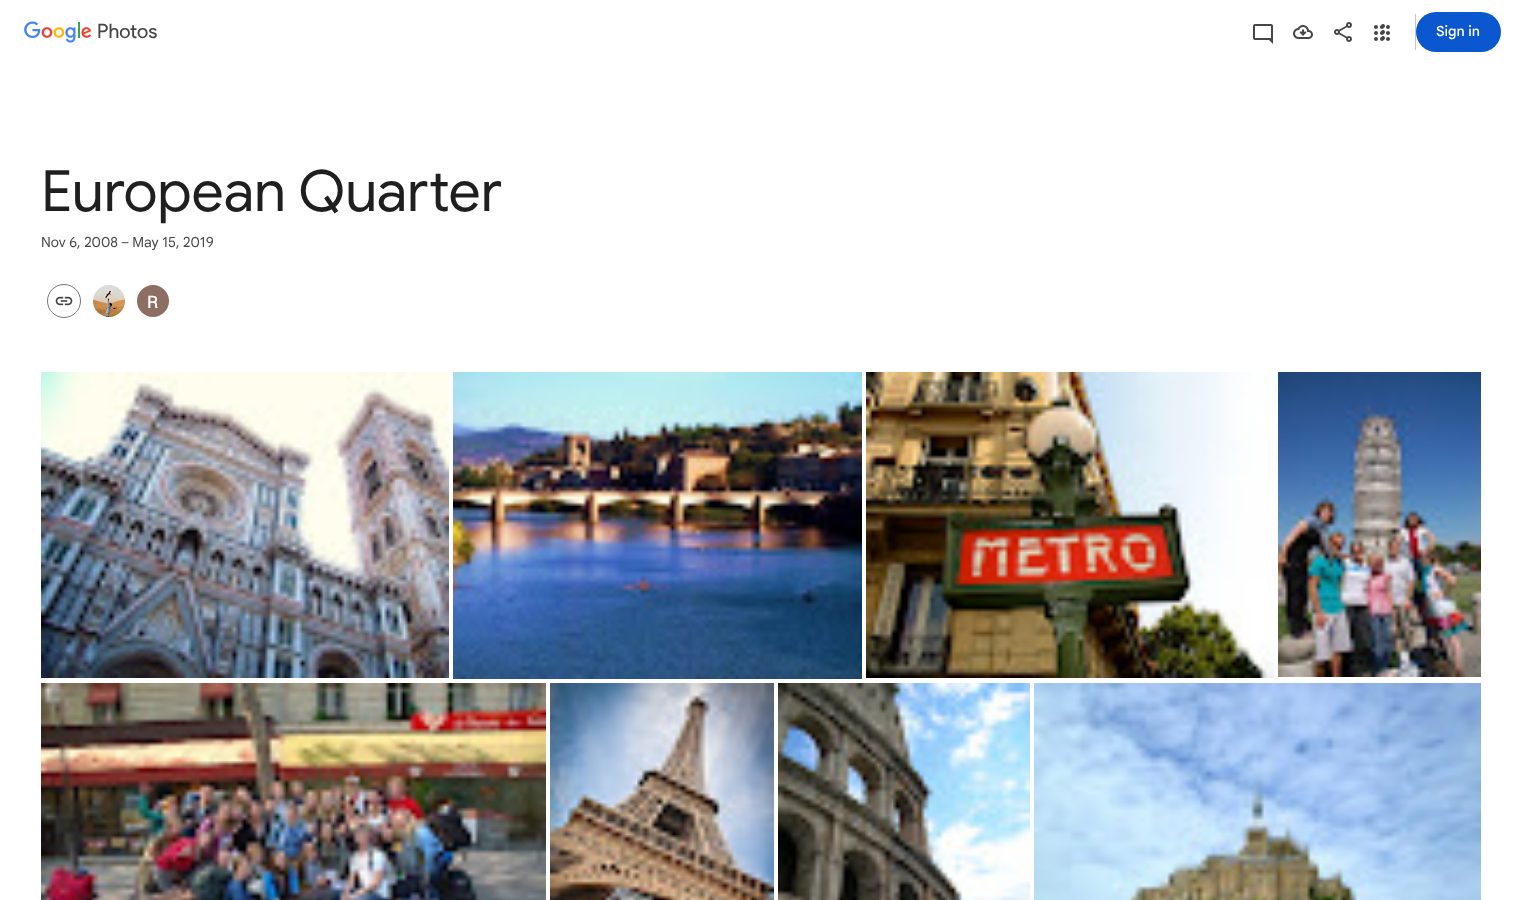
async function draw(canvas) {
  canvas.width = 1537
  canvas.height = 900
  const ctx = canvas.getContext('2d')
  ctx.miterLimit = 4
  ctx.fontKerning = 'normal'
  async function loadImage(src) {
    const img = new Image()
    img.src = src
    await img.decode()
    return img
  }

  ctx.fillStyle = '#fff'
  ctx.fillRect(0, 0, 1537, 900)
  ctx.drawImage(await loadImage('image0.png'), 24, 21, 68, 22)
  ctx.font = '20px Product Sans'
  ctx.fillStyle = '#444746'
  ctx.fillText('Photos', 97, 38)
  ctx.drawImage(await loadImage('image1.png'), 1253, 24, 20, 20)
  ctx.drawImage(await loadImage('image2.png'), 1293, 25, 20, 14)
  ctx.drawImage(await loadImage('image3.png'), 1334, 22, 18, 20)
  ctx.drawImage(await loadImage('image4.png'), 1381, 24, 4, 16)
  ctx.fillStyle = '#c4c7c5'
  ctx.fillRect(1415, 14, 1, 36)
  ctx.font = '57px Google Sans'
  ctx.fillStyle = '#1f1f1f'
  ctx.fillText('European Quarter', 41, 211)
  ctx.font = '14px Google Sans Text'
  ctx.fillStyle = '#444746'
  ctx.fillText('Nov 6, 2008 – May 15, 2019', 41, 247)
  ctx.beginPath()
  ctx.arc(64, 301, 16.5, 0, 2 * Math.PI)
  ctx.strokeStyle = '#747775'
  ctx.stroke()
  ctx.drawImage(await loadImage('image5.png'), 55, 296, 18, 10)
  ctx.drawImage(await loadImage('image6.png'), 93, 285, 32, 32)
  ctx.drawImage(await loadImage('image7.png'), 137, 285, 32, 32)
  ctx.drawImage(await loadImage('image8.png'), 41, 372, 408, 306)
  ctx.drawImage(await loadImage('image9.png'), 453, 372, 409, 307)
  ctx.drawImage(await loadImage('image10.png'), 866, 372, 408, 306)
  ctx.drawImage(await loadImage('image11.png'), 1278, 372, 203, 305)
  ctx.drawImage(await loadImage('image12.png'), 41, 683, 505, 217)
  ctx.drawImage(await loadImage('image13.png'), 550, 683, 224, 217)
  ctx.drawImage(await loadImage('image14.png'), 778, 683, 252, 217)
  ctx.drawImage(await loadImage('image15.png'), 1034, 683, 447, 217)
  ctx.drawImage(await loadImage('image16.png'), 1374, 25, 16, 16)
  ctx.fillStyle = '#0b57d0'
  ctx.beginPath()
  ctx.roundRect(1416, 12, 85, 40, 20)
  ctx.fill()
  ctx.font = '500 14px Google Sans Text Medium'
  ctx.fillStyle = '#fff'
  ctx.fillText('Sign in', 1436, 36)
}

draw(document.querySelector('canvas'))
